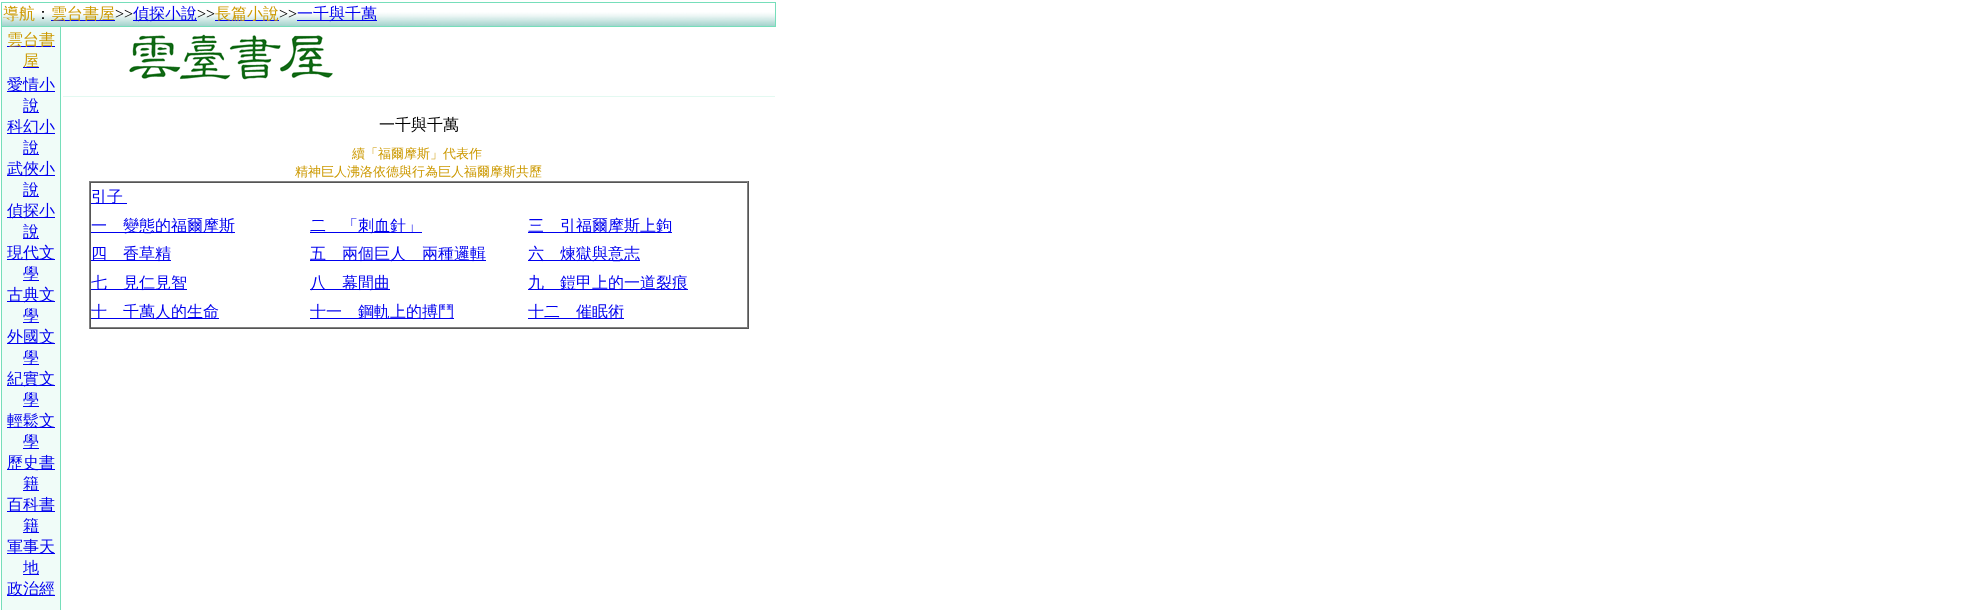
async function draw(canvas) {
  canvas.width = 1975
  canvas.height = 610
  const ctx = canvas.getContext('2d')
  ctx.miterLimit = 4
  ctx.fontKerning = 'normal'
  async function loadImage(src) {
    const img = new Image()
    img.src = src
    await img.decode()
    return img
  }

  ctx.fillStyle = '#fff'
  ctx.fillRect(0, 0, 1975, 610)
  ctx.fillStyle = '#76deba'
  ctx.fillRect(1, 2, 775, 25)
  ctx.drawImage(await loadImage('image0.png'), 2, 3, 773, 23)
  ctx.font = '500 16px WenQuanYi Zen Hei'
  ctx.fillStyle = '#c90'
  ctx.fillText('導航', 3, 19)
  ctx.fillStyle = '#000'
  ctx.fillText('：', 35, 19)
  ctx.fillStyle = '#00e'
  ctx.fillRect(51, 20, 64, 1)
  ctx.fillStyle = '#c90'
  ctx.fillText('雲台書屋', 51, 19)
  ctx.font = '16px Liberation Serif'
  ctx.fillStyle = '#000'
  ctx.fillText('>>', 115, 19)
  ctx.fillStyle = '#00e'
  ctx.fillRect(133, 20, 64, 1)
  ctx.font = '500 16px WenQuanYi Zen Hei'
  ctx.fillText('偵探小說', 133, 19)
  ctx.font = '16px Liberation Serif'
  ctx.fillStyle = '#000'
  ctx.fillText('>>', 197, 19)
  ctx.fillStyle = '#00e'
  ctx.fillRect(215, 20, 64, 1)
  ctx.font = '500 16px WenQuanYi Zen Hei'
  ctx.fillStyle = '#c90'
  ctx.fillText('長篇小說', 215, 19)
  ctx.font = '16px Liberation Serif'
  ctx.fillStyle = '#000'
  ctx.fillText('>>', 279, 19)
  ctx.fillStyle = '#00e'
  ctx.fillRect(297, 20, 80, 1)
  ctx.font = '500 16px WenQuanYi Zen Hei'
  ctx.fillText('一千與千萬', 297, 19)
  ctx.fillStyle = '#76deba'
  ctx.fillRect(1, 27, 1, 583)
  ctx.fillStyle = '#f0fcf8'
  ctx.fillRect(2, 27, 58, 583)
  ctx.fillStyle = '#00e'
  ctx.fillRect(7, 46, 48, 1)
  ctx.fillStyle = '#c90'
  ctx.fillText('雲台書', 7, 45)
  ctx.fillStyle = '#00e'
  ctx.fillRect(23, 67, 16, 1)
  ctx.fillStyle = '#c90'
  ctx.fillText('屋', 23, 66)
  ctx.fillStyle = '#00e'
  ctx.fillRect(7, 91, 48, 1)
  ctx.fillText('愛情小', 7, 90)
  ctx.fillRect(23, 112, 16, 1)
  ctx.fillText('說', 23, 111)
  ctx.fillRect(7, 133, 48, 1)
  ctx.fillText('科幻小', 7, 132)
  ctx.fillRect(23, 154, 16, 1)
  ctx.fillText('說', 23, 153)
  ctx.fillRect(7, 175, 48, 1)
  ctx.fillText('武俠小', 7, 174)
  ctx.fillRect(23, 196, 16, 1)
  ctx.fillText('說', 23, 195)
  ctx.fillRect(7, 217, 48, 1)
  ctx.fillText('偵探小', 7, 216)
  ctx.fillRect(23, 238, 16, 1)
  ctx.fillText('說', 23, 237)
  ctx.fillRect(7, 259, 48, 1)
  ctx.fillText('現代文', 7, 258)
  ctx.fillRect(23, 280, 16, 1)
  ctx.fillText('學', 23, 279)
  ctx.fillRect(7, 301, 48, 1)
  ctx.fillText('古典文', 7, 300)
  ctx.fillRect(23, 322, 16, 1)
  ctx.fillText('學', 23, 321)
  ctx.fillRect(7, 343, 48, 1)
  ctx.fillText('外國文', 7, 342)
  ctx.fillRect(23, 364, 16, 1)
  ctx.fillText('學', 23, 363)
  ctx.fillRect(7, 385, 48, 1)
  ctx.fillText('紀實文', 7, 384)
  ctx.fillRect(23, 406, 16, 1)
  ctx.fillText('學', 23, 405)
  ctx.fillRect(7, 427, 48, 1)
  ctx.fillText('輕鬆文', 7, 426)
  ctx.fillRect(23, 448, 16, 1)
  ctx.fillText('學', 23, 447)
  ctx.fillRect(7, 469, 48, 1)
  ctx.fillText('歷史書', 7, 468)
  ctx.fillRect(23, 490, 16, 1)
  ctx.fillText('籍', 23, 489)
  ctx.fillRect(7, 511, 48, 1)
  ctx.fillText('百科書', 7, 510)
  ctx.fillRect(23, 532, 16, 1)
  ctx.fillText('籍', 23, 531)
  ctx.fillRect(7, 553, 48, 1)
  ctx.fillText('軍事天', 7, 552)
  ctx.fillRect(23, 574, 16, 1)
  ctx.fillText('地', 23, 573)
  ctx.fillRect(7, 595, 48, 1)
  ctx.fillText('政治經', 7, 594)
  ctx.fillStyle = '#76deba'
  ctx.fillRect(60, 27, 1, 583)
  ctx.drawImage(await loadImage('image1.png'), 129, 34, 204, 46)
  ctx.fillStyle = '#e3f9f1'
  ctx.fillRect(63, 96, 712, 1)
  ctx.fillStyle = '#000'
  ctx.fillText('一千與千萬', 379, 130)
  ctx.font = '500 13px WenQuanYi Zen Hei'
  ctx.fillStyle = '#c90'
  ctx.fillText('續「福爾摩斯」代表作', 352, 158)
  ctx.fillText('精神巨人沸洛依德與行為巨人福爾摩斯共歷', 295, 176)
  ctx.fillStyle = '#808080'
  ctx.fillRect(89, 181, 660, 1)
  ctx.fillStyle = '#555'
  ctx.fillRect(748, 181, 1, 148)
  ctx.fillRect(89, 328, 660, 1)
  ctx.fillStyle = '#808080'
  ctx.fillRect(89, 181, 1, 148)
  ctx.fillStyle = '#555'
  ctx.fillRect(90, 182, 658, 1)
  ctx.fillStyle = '#808080'
  ctx.fillRect(747, 182, 1, 146)
  ctx.fillRect(90, 327, 658, 1)
  ctx.fillStyle = '#555'
  ctx.fillRect(90, 182, 1, 146)
  ctx.fillStyle = '#00e'
  ctx.fillRect(91, 203, 36, 1)
  ctx.font = '500 16px WenQuanYi Zen Hei'
  ctx.fillText('引子', 91, 202)
  ctx.fillRect(91, 232, 144, 1)
  ctx.fillText('一　變態的福爾摩斯', 91, 231)
  ctx.fillRect(310, 232, 112, 1)
  ctx.fillText('二　「刺血針」', 310, 231)
  ctx.fillRect(528, 232, 144, 1)
  ctx.fillText('三　引福爾摩斯上鉤', 528, 231)
  ctx.fillRect(91, 260, 80, 1)
  ctx.fillText('四　香草精', 91, 259)
  ctx.fillRect(310, 260, 176, 1)
  ctx.fillText('五　兩個巨人　兩種邏輯', 310, 259)
  ctx.fillRect(528, 260, 112, 1)
  ctx.fillText('六　煉獄與意志', 528, 259)
  ctx.fillRect(91, 289, 96, 1)
  ctx.fillText('七　見仁見智', 91, 288)
  ctx.fillRect(310, 289, 80, 1)
  ctx.fillText('八　幕間曲', 310, 288)
  ctx.fillRect(528, 289, 160, 1)
  ctx.fillText('九　鎧甲上的一道裂痕', 528, 288)
  ctx.fillRect(91, 318, 128, 1)
  ctx.fillText('十　千萬人的生命', 91, 317)
  ctx.fillRect(310, 318, 144, 1)
  ctx.fillText('十一　鋼軌上的搏鬥', 310, 317)
  ctx.fillRect(528, 318, 96, 1)
  ctx.fillText('十二　催眠術', 528, 317)
}

draw(document.querySelector('canvas'))
